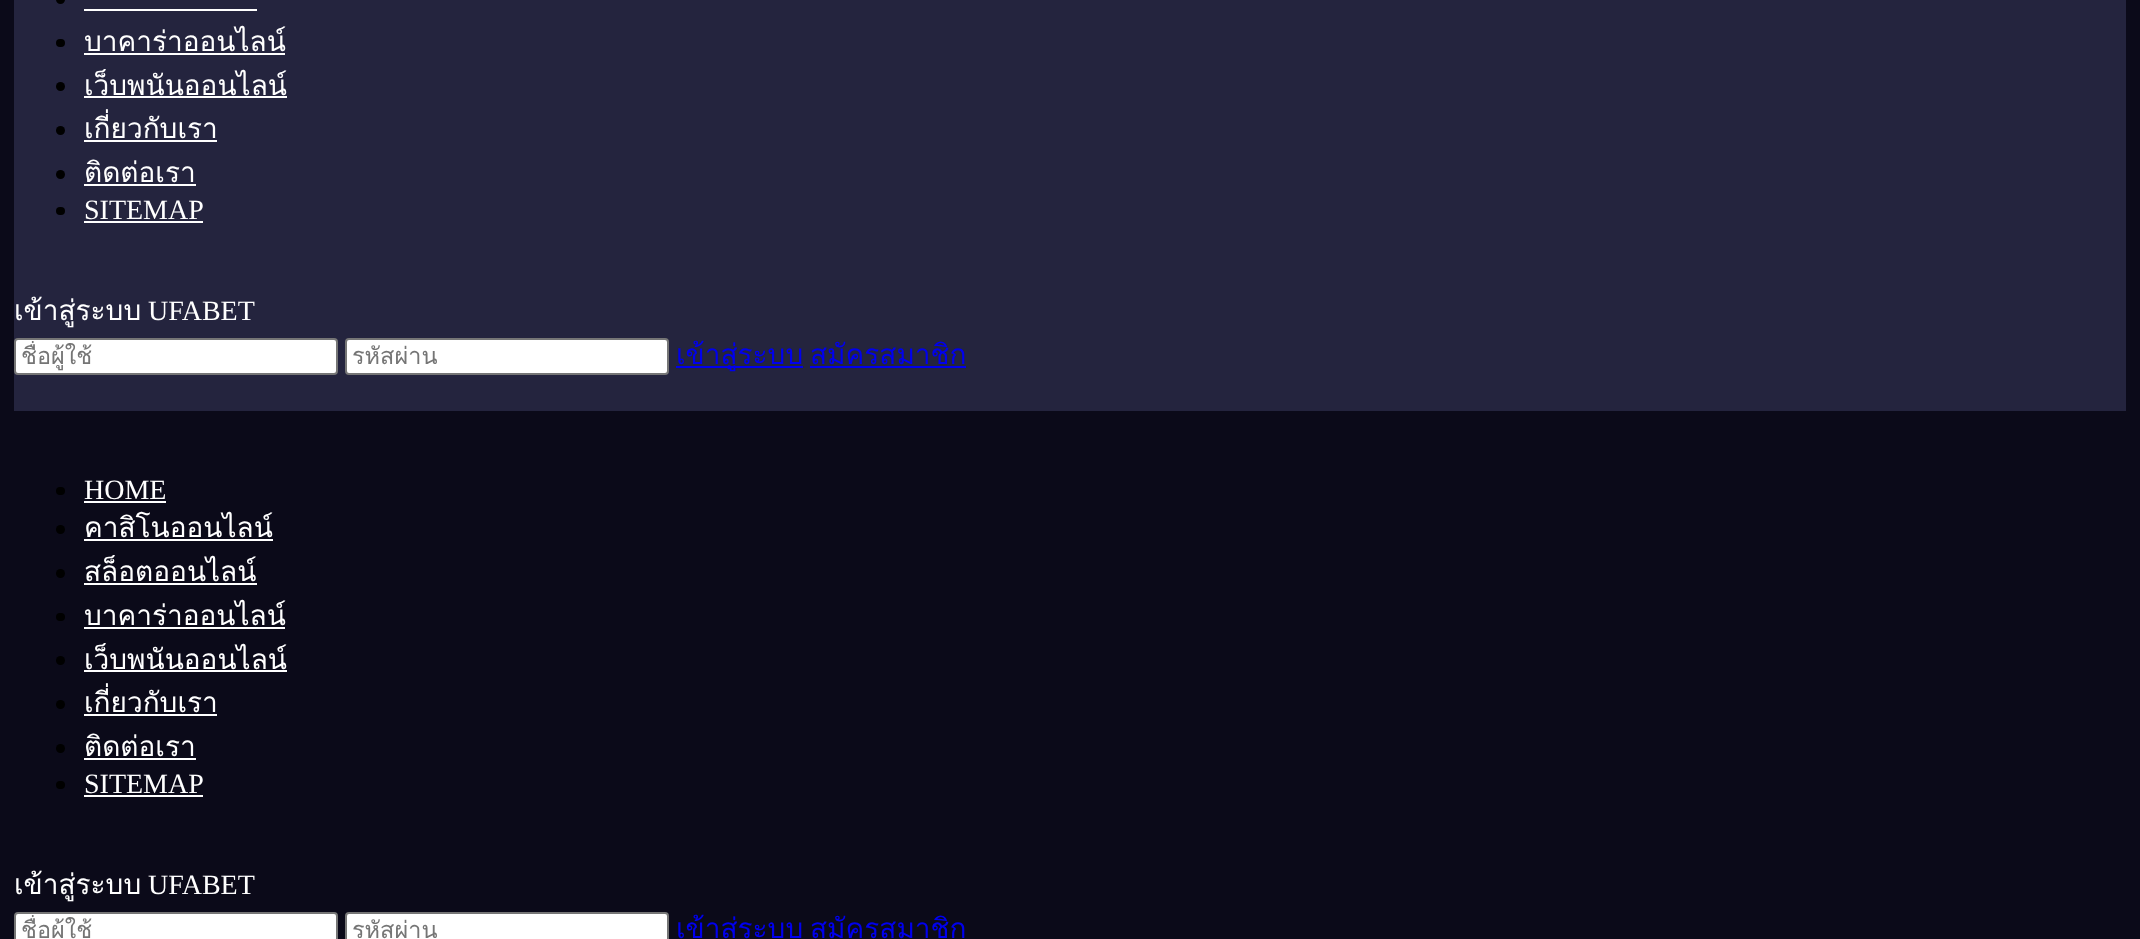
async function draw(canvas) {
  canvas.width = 2140
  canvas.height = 939
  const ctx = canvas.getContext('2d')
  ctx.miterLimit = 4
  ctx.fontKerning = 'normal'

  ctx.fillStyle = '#0b0a19'
  ctx.fillRect(0, 0, 2140, 939)
  ctx.fillStyle = '#24243e'
  ctx.fillRect(14, 0, 2112, 411)
  ctx.fillStyle = '#000'
  ctx.beginPath()
  ctx.arc(60.5, -0.5, 4.5, 0, 2 * Math.PI)
  ctx.fill()
  ctx.fillStyle = '#fff'
  ctx.fillRect(84, 9, 173, 2)
  ctx.fillStyle = '#000'
  ctx.beginPath()
  ctx.roundRect(56, 39, 9, 8, 4)
  ctx.fill()
  ctx.font = '28px Loma'
  ctx.fillStyle = '#fff'
  ctx.fillText('บาคาร่าออนไลน์', 84, 51)
  ctx.fillRect(84, 53, 201, 2)
  ctx.fillStyle = '#000'
  ctx.beginPath()
  ctx.arc(60.5, 86.5, 4.5, 0, 2 * Math.PI)
  ctx.fill()
  ctx.fillStyle = '#fff'
  ctx.fillText('เว็บพนันออนไลน์', 84, 95)
  ctx.fillRect(84, 96, 203, 2)
  ctx.fillStyle = '#000'
  ctx.beginPath()
  ctx.arc(60.5, 130.5, 4.5, 0, 2 * Math.PI)
  ctx.fill()
  ctx.fillStyle = '#fff'
  ctx.fillText('เกี่ยวกับเรา', 84, 138)
  ctx.fillRect(84, 140, 133, 2)
  ctx.fillStyle = '#000'
  ctx.beginPath()
  ctx.arc(60.5, 174.5, 4.5, 0, 2 * Math.PI)
  ctx.fill()
  ctx.fillStyle = '#fff'
  ctx.fillText('ติดต่อเรา', 84, 182)
  ctx.fillRect(84, 184, 112, 2)
  ctx.fillStyle = '#000'
  ctx.beginPath()
  ctx.roundRect(56, 207, 9, 8, 4)
  ctx.fill()
  ctx.font = '28px Liberation Serif'
  ctx.fillStyle = '#fff'
  ctx.fillText('SITEMAP', 84, 219)
  ctx.fillRect(84, 221, 119, 2)
  ctx.font = '28px Loma'
  ctx.fillText('เข้าสู่ระบบ', 14, 320)
  ctx.font = '28px Liberation Serif'
  ctx.fillText('UFABET', 148, 320)
  ctx.beginPath()
  ctx.roundRect(15, 339, 322, 35, 3)
  ctx.fill()
  ctx.strokeStyle = '#767676'
  ctx.lineWidth = 2
  ctx.stroke()
  ctx.save()
  ctx.beginPath()
  ctx.rect(21, 341, 310, 30)
  ctx.clip()
  ctx.font = '23.5px Loma'
  ctx.fillStyle = '#757575'
  ctx.fillText('ชื่อผู้ใช้', 21, 364)
  ctx.restore()
  ctx.beginPath()
  ctx.roundRect(346, 339, 322, 35, 3)
  ctx.fill()
  ctx.stroke()
  ctx.font = '23.5px Loma'
  ctx.fillStyle = '#757575'
  ctx.fillText('รหัสผ่าน', 352, 364)
  ctx.fillStyle = '#00e'
  ctx.fillRect(676, 366, 127, 2)
  ctx.font = '28px Loma'
  ctx.fillText('เข้าสู่ระบบ', 676, 364)
  ctx.fillText('สมัครสมาชิก', 810, 364)
  ctx.fillRect(810, 366, 156, 2)
  ctx.fillStyle = '#000'
  ctx.beginPath()
  ctx.roundRect(56, 487, 9, 8, 4)
  ctx.fill()
  ctx.font = '28px Liberation Serif'
  ctx.fillStyle = '#fff'
  ctx.fillText('HOME', 84, 499)
  ctx.fillRect(84, 501, 82, 2)
  ctx.fillStyle = '#000'
  ctx.beginPath()
  ctx.arc(60.5, 529.5, 4.5, 0, 2 * Math.PI)
  ctx.fill()
  ctx.font = '28px Loma'
  ctx.fillStyle = '#fff'
  ctx.fillText('คาสิโนออนไลน์', 84, 537)
  ctx.fillRect(84, 539, 189, 2)
  ctx.fillStyle = '#000'
  ctx.beginPath()
  ctx.arc(60.5, 573.5, 4.5, 0, 2 * Math.PI)
  ctx.fill()
  ctx.fillStyle = '#fff'
  ctx.fillText('สล็อตออนไลน์', 84, 581)
  ctx.fillRect(84, 583, 173, 2)
  ctx.fillStyle = '#000'
  ctx.beginPath()
  ctx.roundRect(56, 613, 9, 8, 4)
  ctx.fill()
  ctx.fillStyle = '#fff'
  ctx.fillText('บาคาร่าออนไลน์', 84, 625)
  ctx.fillRect(84, 627, 201, 2)
  ctx.fillStyle = '#000'
  ctx.beginPath()
  ctx.arc(60.5, 660.5, 4.5, 0, 2 * Math.PI)
  ctx.fill()
  ctx.fillStyle = '#fff'
  ctx.fillText('เว็บพนันออนไลน์', 84, 669)
  ctx.fillRect(84, 670, 203, 2)
  ctx.fillStyle = '#000'
  ctx.beginPath()
  ctx.arc(60.5, 704.5, 4.5, 0, 2 * Math.PI)
  ctx.fill()
  ctx.fillStyle = '#fff'
  ctx.fillText('เกี่ยวกับเรา', 84, 712)
  ctx.fillRect(84, 714, 133, 2)
  ctx.fillStyle = '#000'
  ctx.beginPath()
  ctx.arc(60.5, 748.5, 4.5, 0, 2 * Math.PI)
  ctx.fill()
  ctx.fillStyle = '#fff'
  ctx.fillText('ติดต่อเรา', 84, 756)
  ctx.fillRect(84, 758, 112, 2)
  ctx.fillStyle = '#000'
  ctx.beginPath()
  ctx.roundRect(56, 781, 9, 8, 4)
  ctx.fill()
  ctx.font = '28px Liberation Serif'
  ctx.fillStyle = '#fff'
  ctx.fillText('SITEMAP', 84, 793)
  ctx.fillRect(84, 795, 119, 2)
  ctx.font = '28px Loma'
  ctx.fillText('เข้าสู่ระบบ', 14, 894)
  ctx.font = '28px Liberation Serif'
  ctx.fillText('UFABET', 148, 894)
  ctx.beginPath()
  ctx.roundRect(15, 913, 322, 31, 3)
  ctx.fill()
  ctx.stroke()
  ctx.save()
  ctx.beginPath()
  ctx.rect(21, 915, 310, 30)
  ctx.clip()
  ctx.font = '23.5px Loma'
  ctx.fillStyle = '#757575'
  ctx.fillText('ชื่อผู้ใช้', 21, 938)
  ctx.restore()
  ctx.beginPath()
  ctx.roundRect(346, 913, 322, 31, 3)
  ctx.fill()
  ctx.stroke()
  ctx.font = '23.5px Loma'
  ctx.fillStyle = '#757575'
  ctx.fillText('รหัสผ่าน', 352, 938)
  ctx.font = '28px Loma'
  ctx.fillStyle = '#00e'
  ctx.fillText('เข้าสู่ระบบ', 676, 938)
  ctx.fillText('สมัครสมาชิก', 810, 938)
}

draw(document.querySelector('canvas'))
